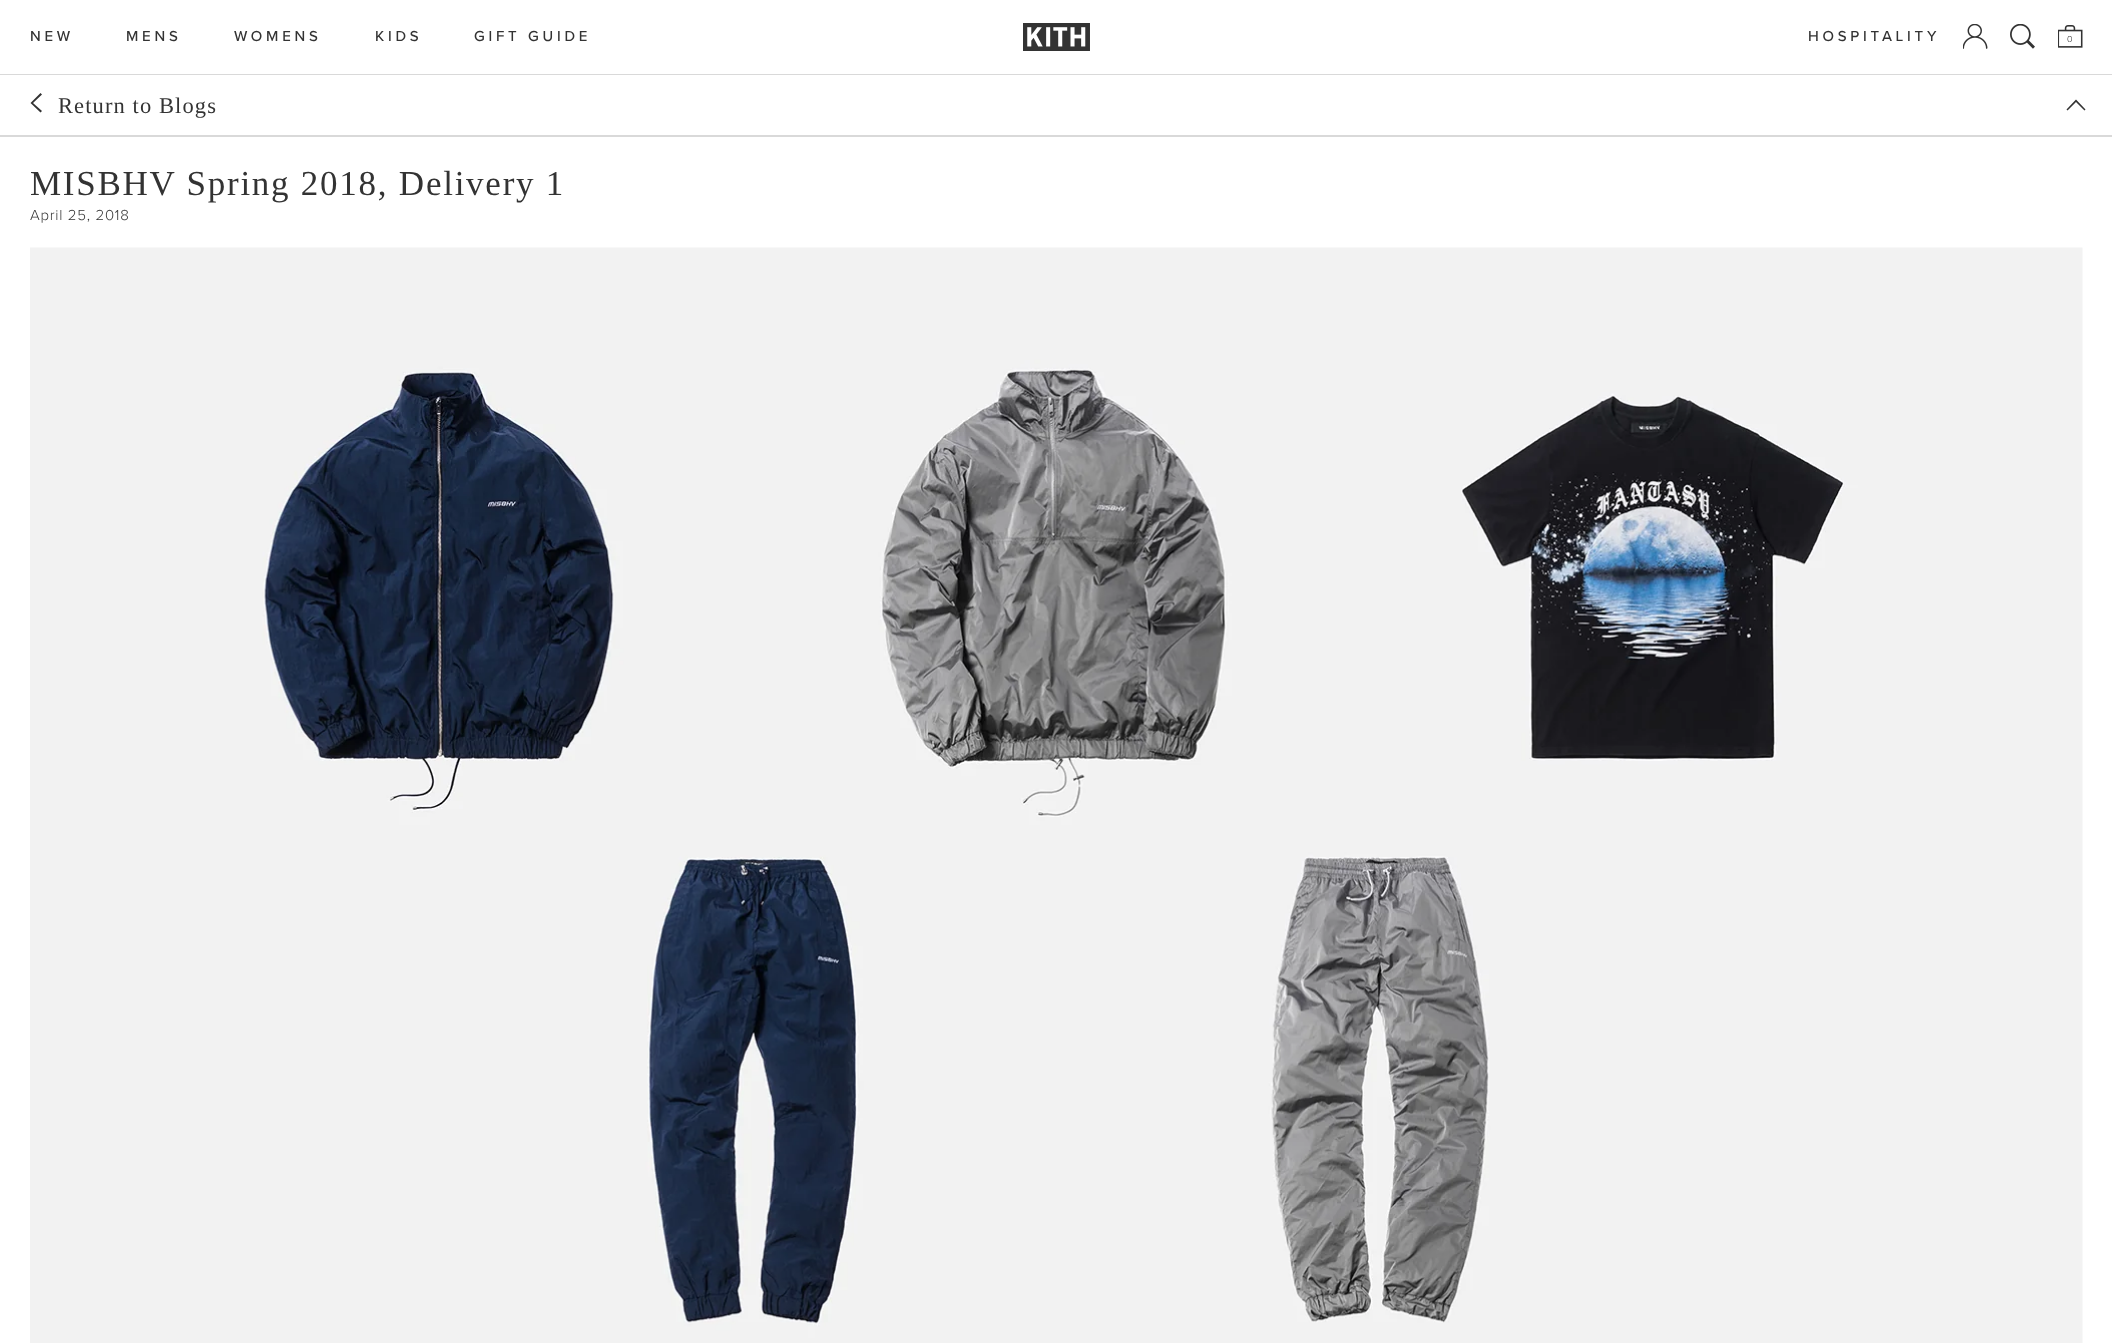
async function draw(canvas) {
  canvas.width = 2112
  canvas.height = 1343
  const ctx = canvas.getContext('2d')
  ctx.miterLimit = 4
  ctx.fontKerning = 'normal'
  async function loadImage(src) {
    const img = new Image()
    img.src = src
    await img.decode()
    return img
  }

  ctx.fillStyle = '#fff'
  ctx.fillRect(0, 0, 2112, 1343)
  ctx.letterSpacing = '3.75px'
  ctx.font = '500 15px Proxima Nova'
  ctx.fillStyle = '#333'
  ctx.fillText('NEW', 30, 41)
  ctx.fillText('MENS', 126, 41)
  ctx.fillText('WOMENS', 234, 41)
  ctx.fillText('KIDS', 375, 41)
  ctx.fillText('GIFT GUIDE', 474, 41)
  ctx.drawImage(await loadImage('image0.png'), 1023, 23, 67, 28)
  ctx.fillText('HOSPITALITY', 1808, 41)
  ctx.drawImage(await loadImage('image1.png'), 1963, 24, 25, 25)
  ctx.drawImage(await loadImage('image2.png'), 2010, 24, 25, 25)
  ctx.drawImage(await loadImage('image3.png'), 2058, 25, 25, 23)
  ctx.letterSpacing = '0.75px'
  ctx.font = '300 9px Proxima Nova'
  ctx.fillText('0', 2067, 42)
  ctx.fillStyle = '#d9d9d9'
  ctx.fillRect(0, 74, 2112, 1)
  ctx.fillStyle = '#333'
  ctx.beginPath()
  ctx.moveTo(40.5, 93)
  ctx.lineTo(42, 94.5)
  ctx.lineTo(33, 103)
  ctx.lineTo(42, 111)
  ctx.lineTo(40.5, 112.5)
  ctx.lineTo(30.5, 103)
  ctx.closePath()
  ctx.fill()
  ctx.letterSpacing = '1.1px'
  ctx.font = '22.5px Liberation Serif'
  ctx.fillText('Return to Blogs', 58, 113)
  ctx.beginPath()
  ctx.moveTo(2085.5, 109.5)
  ctx.lineTo(2084.5, 110.5)
  ctx.lineTo(2076, 102)
  ctx.lineTo(2067.5, 110.5)
  ctx.lineTo(2066.5, 109.5)
  ctx.lineTo(2076, 99.5)
  ctx.closePath()
  ctx.fill()
  ctx.fillStyle = '#d9d9d9'
  ctx.fillRect(0, 135, 2112, 2)
  ctx.letterSpacing = '1.75px'
  ctx.font = '35px Liberation Serif'
  ctx.fillStyle = '#333'
  ctx.fillText('MISBHV Spring 2018, Delivery 1', 30, 195)
  ctx.letterSpacing = '0.75px'
  ctx.font = '300 15px Proxima Nova'
  ctx.fillText('April 25, 2018', 30, 220)
  ctx.drawImage(await loadImage('image4.png'), 30, 247, 2053, 1096)
}

draw(document.querySelector('canvas'))
